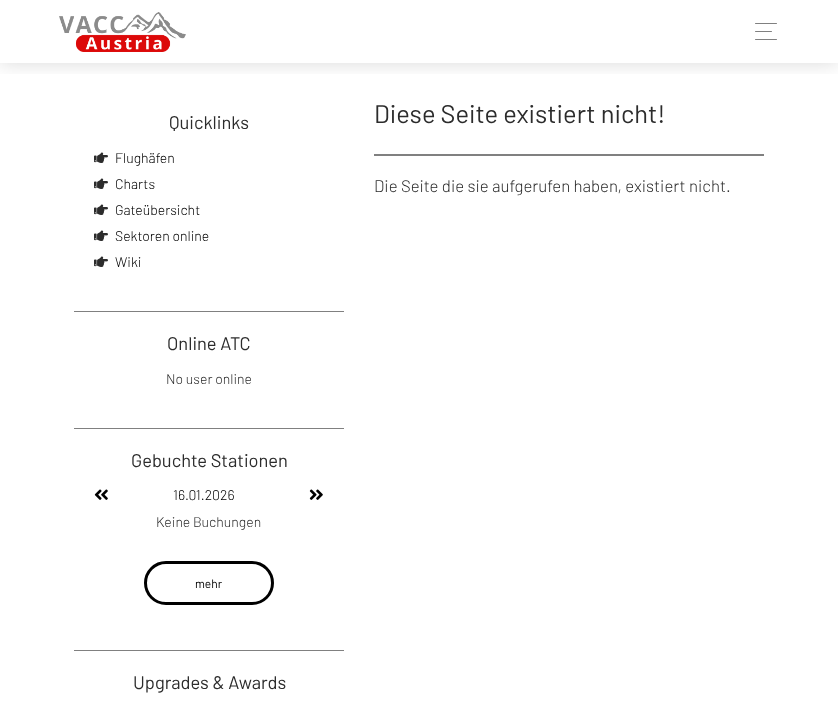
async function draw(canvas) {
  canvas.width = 838
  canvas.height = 710
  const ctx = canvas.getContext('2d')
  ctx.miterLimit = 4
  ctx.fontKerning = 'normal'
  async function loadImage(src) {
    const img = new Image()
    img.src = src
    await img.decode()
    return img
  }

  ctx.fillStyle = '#fff'
  ctx.fillRect(0, 0, 838, 710)
  ctx.save()
  ctx.beginPath()
  ctx.rect(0, 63, 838, 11)
  ctx.clip()
  ctx.fillStyle = '#00000026'
  ctx.filter = 'blur(10px)'
  ctx.beginPath()
  ctx.rect(0, 0, 838, 63)
  ctx.fill()
  ctx.filter = 'none'
  ctx.restore()
  ctx.drawImage(await loadImage('image0.png'), 59, 12, 127, 40)
  ctx.fillStyle = '#808080'
  ctx.beginPath()
  ctx.roundRect(755, 23, 22, 1, 0.5)
  ctx.fill()
  ctx.beginPath()
  ctx.roundRect(755, 31, 17, 1, 0.5)
  ctx.fill()
  ctx.beginPath()
  ctx.roundRect(755, 39, 22, 1, 0.5)
  ctx.fill()
  ctx.font = '18.25px Barlow'
  ctx.fillStyle = '#2c2c2c'
  ctx.fillText('Quicklinks', 169, 129)
  ctx.drawImage(await loadImage('image1.png'), 94, 152, 14, 11)
  ctx.font = '300 14px Barlow'
  ctx.fillStyle = '#000'
  ctx.fillText('Flughäfen', 115, 163)
  ctx.drawImage(await loadImage('image1.png'), 94, 178, 14, 11)
  ctx.fillText('Charts', 115, 189)
  ctx.drawImage(await loadImage('image1.png'), 94, 204, 14, 11)
  ctx.fillText('Gateübersicht', 115, 215)
  ctx.drawImage(await loadImage('image1.png'), 94, 230, 14, 11)
  ctx.fillText('Sektoren online', 115, 241)
  ctx.drawImage(await loadImage('image1.png'), 94, 256, 14, 11)
  ctx.fillText('Wiki', 115, 267)
  ctx.fillStyle = '#808080'
  ctx.fillRect(74, 311, 270, 1)
  ctx.font = '18.25px Barlow'
  ctx.fillStyle = '#2c2c2c'
  ctx.fillText('Online ATC', 167, 350)
  ctx.font = '300 14px Barlow'
  ctx.fillText('No user online', 166, 384)
  ctx.fillStyle = '#808080'
  ctx.fillRect(74, 428, 270, 1)
  ctx.font = '18.25px Barlow'
  ctx.fillStyle = '#2c2c2c'
  ctx.fillText('Gebuchte Stationen', 131, 467)
  ctx.drawImage(await loadImage('image2.png'), 94, 489, 14, 11)
  ctx.font = '300 14px Barlow'
  ctx.fillStyle = '#000'
  ctx.fillText('16.01.2026', 173, 500)
  ctx.drawImage(await loadImage('image3.png'), 309, 489, 14, 11)
  ctx.fillStyle = '#2c2c2c'
  ctx.fillText('Keine Buchungen', 156, 527)
  ctx.beginPath()
  ctx.roundRect(145.5, 562.5, 127, 41, 20.5)
  ctx.strokeStyle = '#000'
  ctx.lineWidth = 3
  ctx.stroke()
  ctx.font = '12px Barlow'
  ctx.fillStyle = '#000'
  ctx.fillText('mehr', 195, 588)
  ctx.fillStyle = '#808080'
  ctx.fillRect(74, 650, 270, 1)
  ctx.font = '18.25px Barlow'
  ctx.fillStyle = '#2c2c2c'
  ctx.fillText('Upgrades & Awards', 133, 689)
  ctx.font = '25.5px Barlow'
  ctx.fillText('Diese Seite existiert nicht!', 374, 123)
  ctx.fillStyle = '#808080'
  ctx.fillRect(374, 154, 390, 2)
  ctx.font = '300 16.8px Barlow'
  ctx.fillStyle = '#2c2c2c'
  ctx.fillText('Die Seite die sie aufgerufen haben, existiert nicht.', 374, 192)
}

draw(document.querySelector('canvas'))
